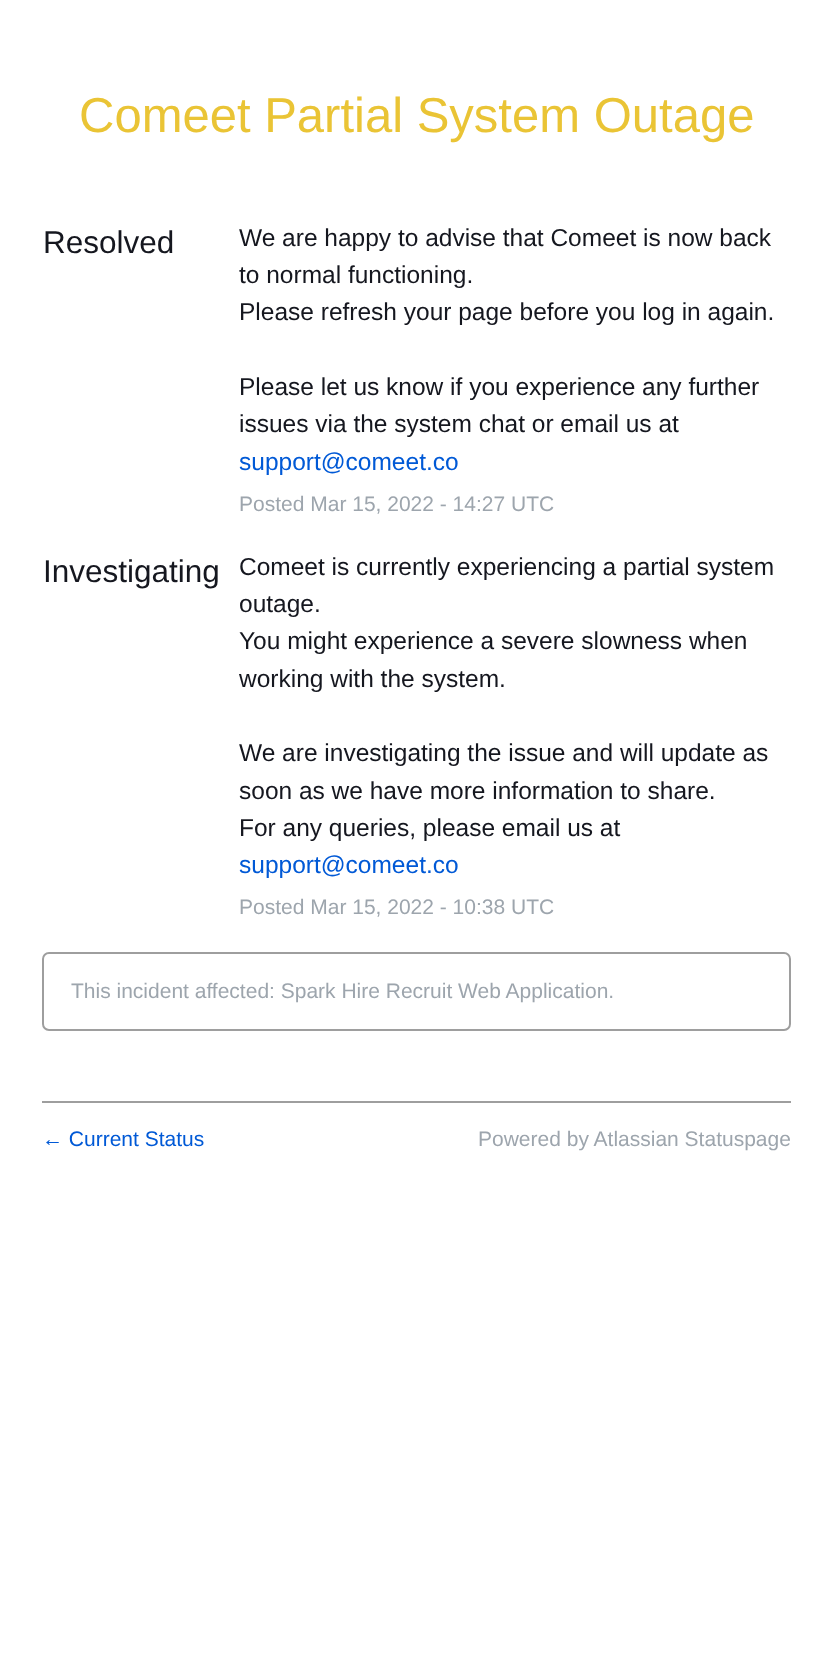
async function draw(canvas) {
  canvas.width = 832
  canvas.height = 1668
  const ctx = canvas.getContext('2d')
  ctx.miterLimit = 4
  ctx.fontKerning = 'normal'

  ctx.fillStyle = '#fff'
  ctx.fillRect(0, 0, 832, 1668)
  ctx.font = '49px Liberation Sans'
  ctx.fillStyle = '#eac435'
  ctx.fillText('Comeet Partial System Outage', 79, 132)
  ctx.font = '31.5px Liberation Sans'
  ctx.fillStyle = '#15171f'
  ctx.fillText('Resolved', 43, 253)
  ctx.font = '24.5px Liberation Sans'
  ctx.fillText('We are happy to advise that Comeet is now back', 239, 246)
  ctx.fillText('to normal functioning.', 239, 283)
  ctx.fillText('Please refresh your page before you log in again.', 239, 320)
  ctx.fillText('Please let us know if you experience any further', 239, 395)
  ctx.fillText('issues via the system chat or email us at', 239, 432)
  ctx.fillStyle = '#0059d6'
  ctx.fillText('support@comeet.co', 239, 470)
  ctx.font = '21px Liberation Sans'
  ctx.fillStyle = '#9da5ad'
  ctx.fillText('Posted Mar 15, 2022 - 14:27 UTC', 239, 511)
  ctx.font = '31.5px Liberation Sans'
  ctx.fillStyle = '#15171f'
  ctx.fillText('Investigating', 43, 582)
  ctx.font = '24.5px Liberation Sans'
  ctx.fillText('Comeet is currently experiencing a partial system', 239, 575)
  ctx.fillText('outage.', 239, 612)
  ctx.fillText('You might experience a severe slowness when', 239, 649)
  ctx.fillText('working with the system.', 239, 687)
  ctx.fillText('We are investigating the issue and will update as', 239, 761)
  ctx.fillText('soon as we have more information to share.', 239, 799)
  ctx.fillText('For any queries, please email us at', 239, 836)
  ctx.fillStyle = '#0059d6'
  ctx.fillText('support@comeet.co', 239, 873)
  ctx.font = '21px Liberation Sans'
  ctx.fillStyle = '#9da5ad'
  ctx.fillText('Posted Mar 15, 2022 - 10:38 UTC', 239, 914)
  ctx.beginPath()
  ctx.roundRect(43, 953, 747, 77, 6)
  ctx.strokeStyle = '#9e9e9e'
  ctx.lineWidth = 2
  ctx.stroke()
  ctx.fillText('This incident affected: Spark Hire Recruit Web Application.', 71, 998)
  ctx.fillStyle = '#9e9e9e'
  ctx.fillRect(42, 1101, 749, 2)
  ctx.fillStyle = '#0059d6'
  ctx.fillText('← Current Status', 42, 1146)
  ctx.fillStyle = '#9da5ad'
  ctx.fillText('Powered by Atlassian Statuspage', 478, 1146)
}

draw(document.querySelector('canvas'))
